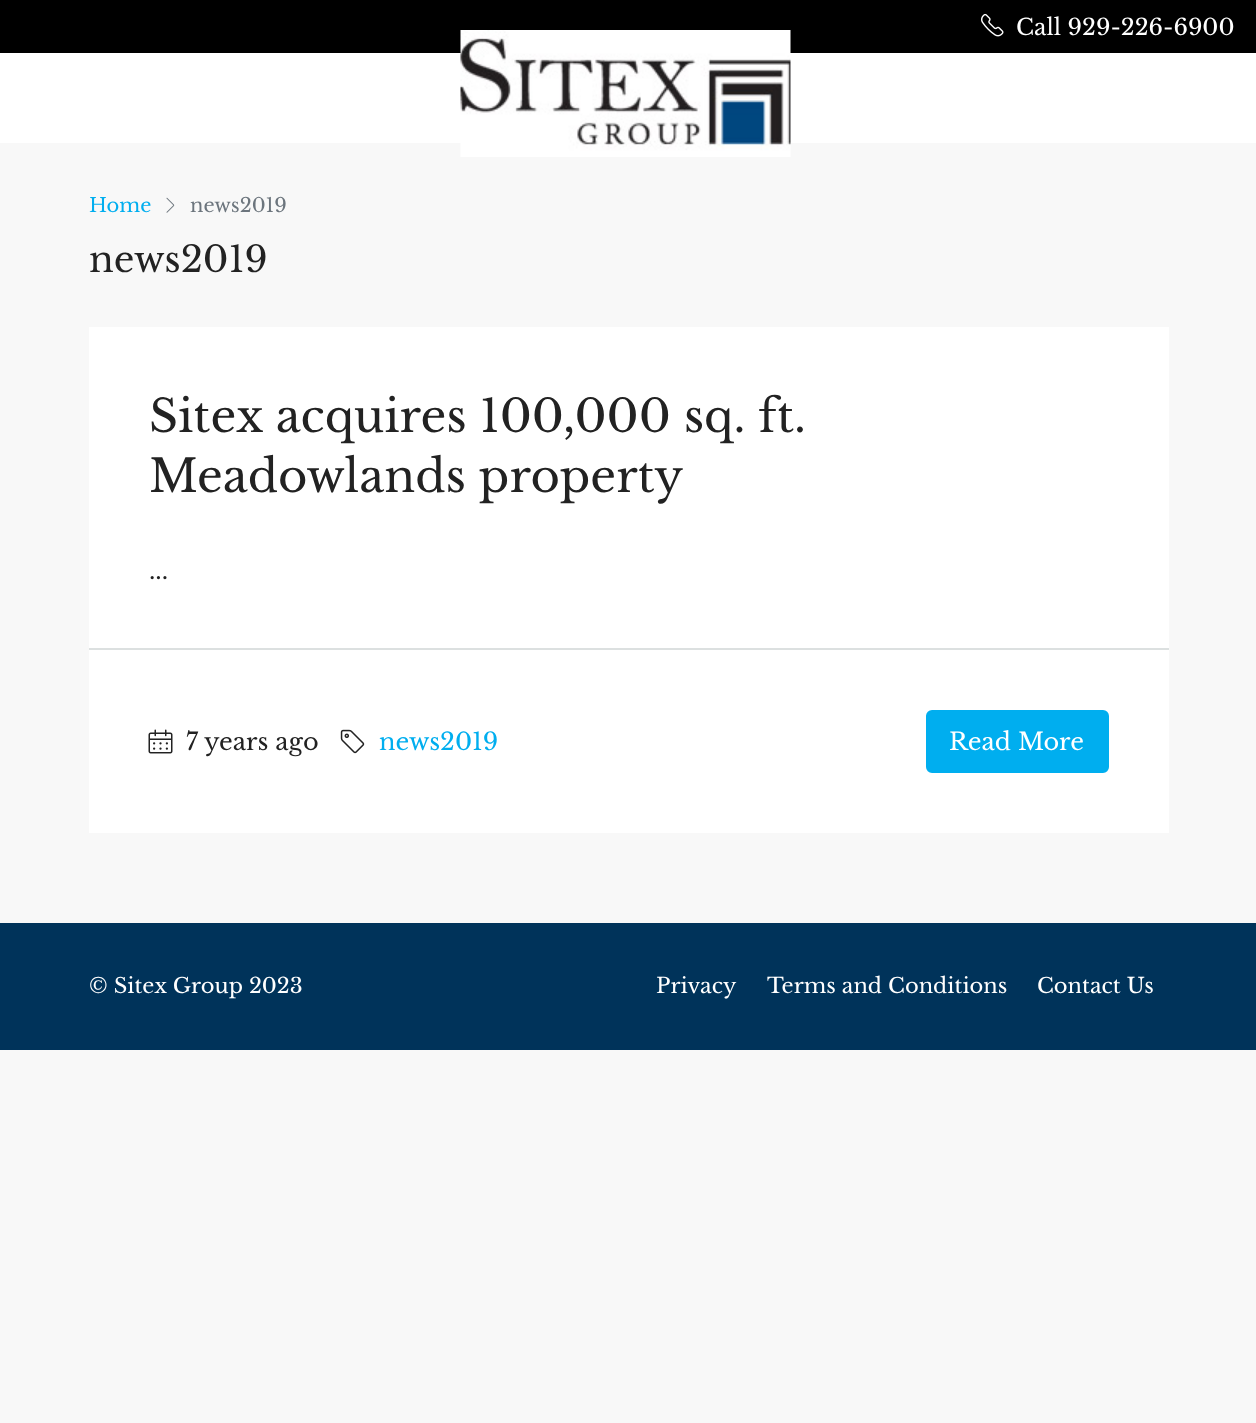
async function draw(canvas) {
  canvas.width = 1256
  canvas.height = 1423
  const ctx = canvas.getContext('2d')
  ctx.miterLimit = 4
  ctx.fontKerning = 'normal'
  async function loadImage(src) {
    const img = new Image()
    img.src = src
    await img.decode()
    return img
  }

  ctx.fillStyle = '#f8f8f8'
  ctx.fillRect(0, 0, 1256, 1423)
  ctx.fillStyle = '#000'
  ctx.fillRect(0, 0, 1256, 53)
  ctx.drawImage(await loadImage('image0.png'), 981, 13, 23, 24)
  ctx.font = '22.5px Libre Baskerville'
  ctx.fillStyle = '#fff'
  ctx.fillText('Call 929-226-6900', 1016, 35)
  ctx.fillRect(0, 53, 1256, 90)
  ctx.drawImage(await loadImage('image1.png'), 460, 30, 331, 127)
  ctx.font = '19.5px Libre Baskerville'
  ctx.fillStyle = '#00aeef'
  ctx.fillText('Home', 89, 212)
  ctx.drawImage(await loadImage('image2.png'), 166, 197, 9, 16)
  ctx.fillStyle = '#6c757d'
  ctx.fillText('news2019', 190, 212)
  ctx.font = '36px Libre Baskerville'
  ctx.fillStyle = '#222'
  ctx.fillText('news2019', 89, 272)
  ctx.fillStyle = '#fff'
  ctx.fillRect(89, 327, 1080, 506)
  ctx.font = '45px Libre Baskerville'
  ctx.fillStyle = '#222'
  ctx.fillText('Sitex acquires 100,000 sq. ft.', 149, 432)
  ctx.fillText('Meadowlands property', 149, 492)
  ctx.font = '24px Libre Baskerville'
  ctx.fillText('...', 149, 579)
  ctx.fillStyle = '#dce0e0'
  ctx.fillRect(89, 648, 1080, 2)
  ctx.drawImage(await loadImage('image3.png'), 148, 729, 25, 25)
  ctx.fillStyle = '#222'
  ctx.fillText('7 years ago', 186, 750)
  ctx.drawImage(await loadImage('image4.png'), 340, 729, 25, 25)
  ctx.fillStyle = '#00aeef'
  ctx.fillText('news2019', 379, 750)
  ctx.beginPath()
  ctx.roundRect(927, 711, 181, 61, 5)
  ctx.fill()
  ctx.strokeStyle = '#00aeef'
  ctx.lineWidth = 2
  ctx.stroke()
  ctx.fillStyle = '#fff'
  ctx.fillText('Read More', 949, 750)
  ctx.fillStyle = '#00335a'
  ctx.fillRect(0, 923, 1256, 127)
  ctx.font = '21px Libre Baskerville'
  ctx.fillStyle = '#fff'
  ctx.fillText('© Sitex Group 2023', 89, 993)
  ctx.fillText('Privacy', 656, 993)
  ctx.fillText('Terms and Conditions', 767, 993)
  ctx.fillText('Contact Us', 1037, 993)
}

draw(document.querySelector('canvas'))
